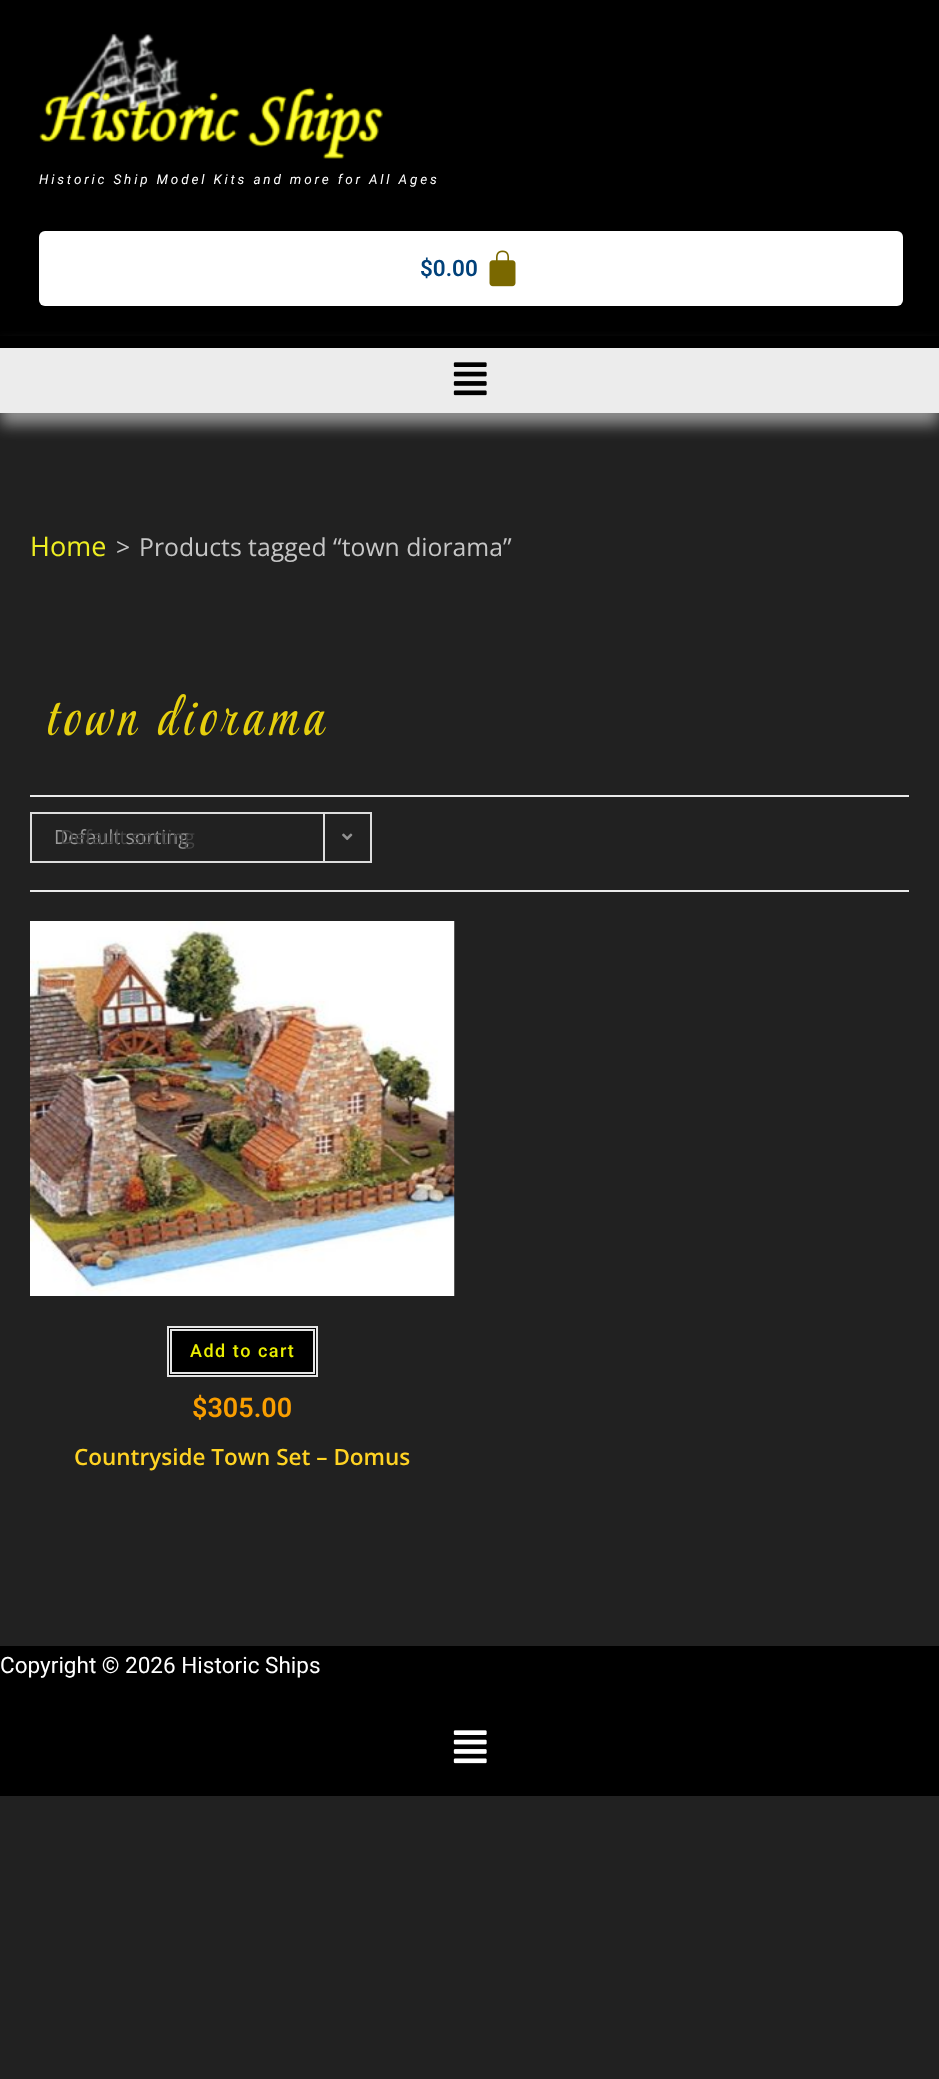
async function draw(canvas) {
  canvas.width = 939
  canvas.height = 2079
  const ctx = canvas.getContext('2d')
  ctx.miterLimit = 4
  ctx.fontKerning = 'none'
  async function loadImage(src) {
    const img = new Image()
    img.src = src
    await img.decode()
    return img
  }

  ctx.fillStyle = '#212121'
  ctx.fillRect(0, 0, 939, 2079)
  ctx.fillStyle = '#000'
  ctx.fillRect(0, 0, 939, 336)
  ctx.drawImage(await loadImage('image0.png'), 39, 33, 344, 126)
  ctx.letterSpacing = '2.85px'
  ctx.font = 'italic 13.5px Roboto'
  ctx.fillStyle = '#fff'
  ctx.fillText('Historic Ship Model Kits and more for All Ages', 39, 184)
  ctx.beginPath()
  ctx.roundRect(39, 231, 864, 75, 6)
  ctx.fill()
  ctx.letterSpacing = '0px'
  ctx.font = '600 22.5px Roboto'
  ctx.fillStyle = '#01417a'
  ctx.fillText('$0.00', 420, 276)
  ctx.drawImage(await loadImage('image1.png'), 489, 250, 27, 37)
  ctx.fillStyle = '#ffffff80'
  ctx.filter = 'blur(7.5px)'
  ctx.beginPath()
  ctx.rect(0, 348, 939, 77)
  ctx.fill()
  ctx.filter = 'none'
  ctx.fillStyle = '#ececec'
  ctx.fillRect(0, 348, 939, 65)
  ctx.fillStyle = '#000'
  ctx.fillRect(0, 336, 939, 12)
  ctx.drawImage(await loadImage('image2.png'), 453, 362, 34, 34)
  ctx.font = '27px Open Sans'
  ctx.fillStyle = '#ee2'
  ctx.fillText('Home', 30, 556)
  ctx.font = '24.75px Open Sans'
  ctx.fillStyle = '#c6c6c6'
  ctx.fillText('>', 116, 556)
  ctx.fillText('Products tagged “town diorama”', 139, 556)
  ctx.letterSpacing = '6.25px'
  ctx.wordSpacing = '-2px'
  ctx.font = 'italic 54px Style Script'
  ctx.fillStyle = '#e6cf0d'
  ctx.fillText('town diorama', 45, 735)
  ctx.fillStyle = '#eaeaea'
  ctx.fillRect(30, 795, 879, 2)
  ctx.fillRect(30, 890, 879, 2)
  ctx.strokeStyle = '#ddd'
  ctx.lineWidth = 2
  ctx.strokeRect(31, 813, 340, 49)
  ctx.letterSpacing = '0px'
  ctx.wordSpacing = '0px'
  ctx.font = '19.5px Open Sans'
  ctx.fillStyle = '#999'
  ctx.fillText('Default sorting', 54, 844)
  ctx.fillStyle = '#ddd'
  ctx.fillRect(323, 813, 2, 48)
  ctx.drawImage(await loadImage('image3.png'), 342, 833, 11, 8)
  ctx.fillStyle = '#434343'
  ctx.fillText('Default sorting', 60, 844)
  ctx.drawImage(await loadImage('image4.png'), 30, 921, 425, 375)
  ctx.fillStyle = '#000'
  ctx.beginPath()
  ctx.rect(168, 1327, 149, 49)
  ctx.fill()
  ctx.strokeStyle = '#e4e4e4'
  ctx.stroke()
  ctx.strokeRect(171, 1330, 143, 43)
  ctx.letterSpacing = '1.5px'
  ctx.font = '500 18px Roboto'
  ctx.fillStyle = '#ebef00'
  ctx.fillText('Add to cart', 190, 1357)
  ctx.letterSpacing = '0px'
  ctx.font = '600 27px Roboto'
  ctx.fillStyle = '#f99e00'
  ctx.fillText('$305.00', 192, 1417)
  ctx.font = '600 22.5px Open Sans'
  ctx.fillStyle = '#ffd323'
  ctx.fillText('Countryside Town Set – Domus', 74, 1465)
  ctx.fillStyle = '#000'
  ctx.fillRect(0, 1646, 939, 150)
  ctx.font = '22.5px Roboto'
  ctx.fillStyle = '#fff'
  ctx.fillText('Copyright © 2026 Historic Ships', 0, 1673)
  ctx.drawImage(await loadImage('image5.png'), 453, 1730, 34, 34)
}

draw(document.querySelector('canvas'))
